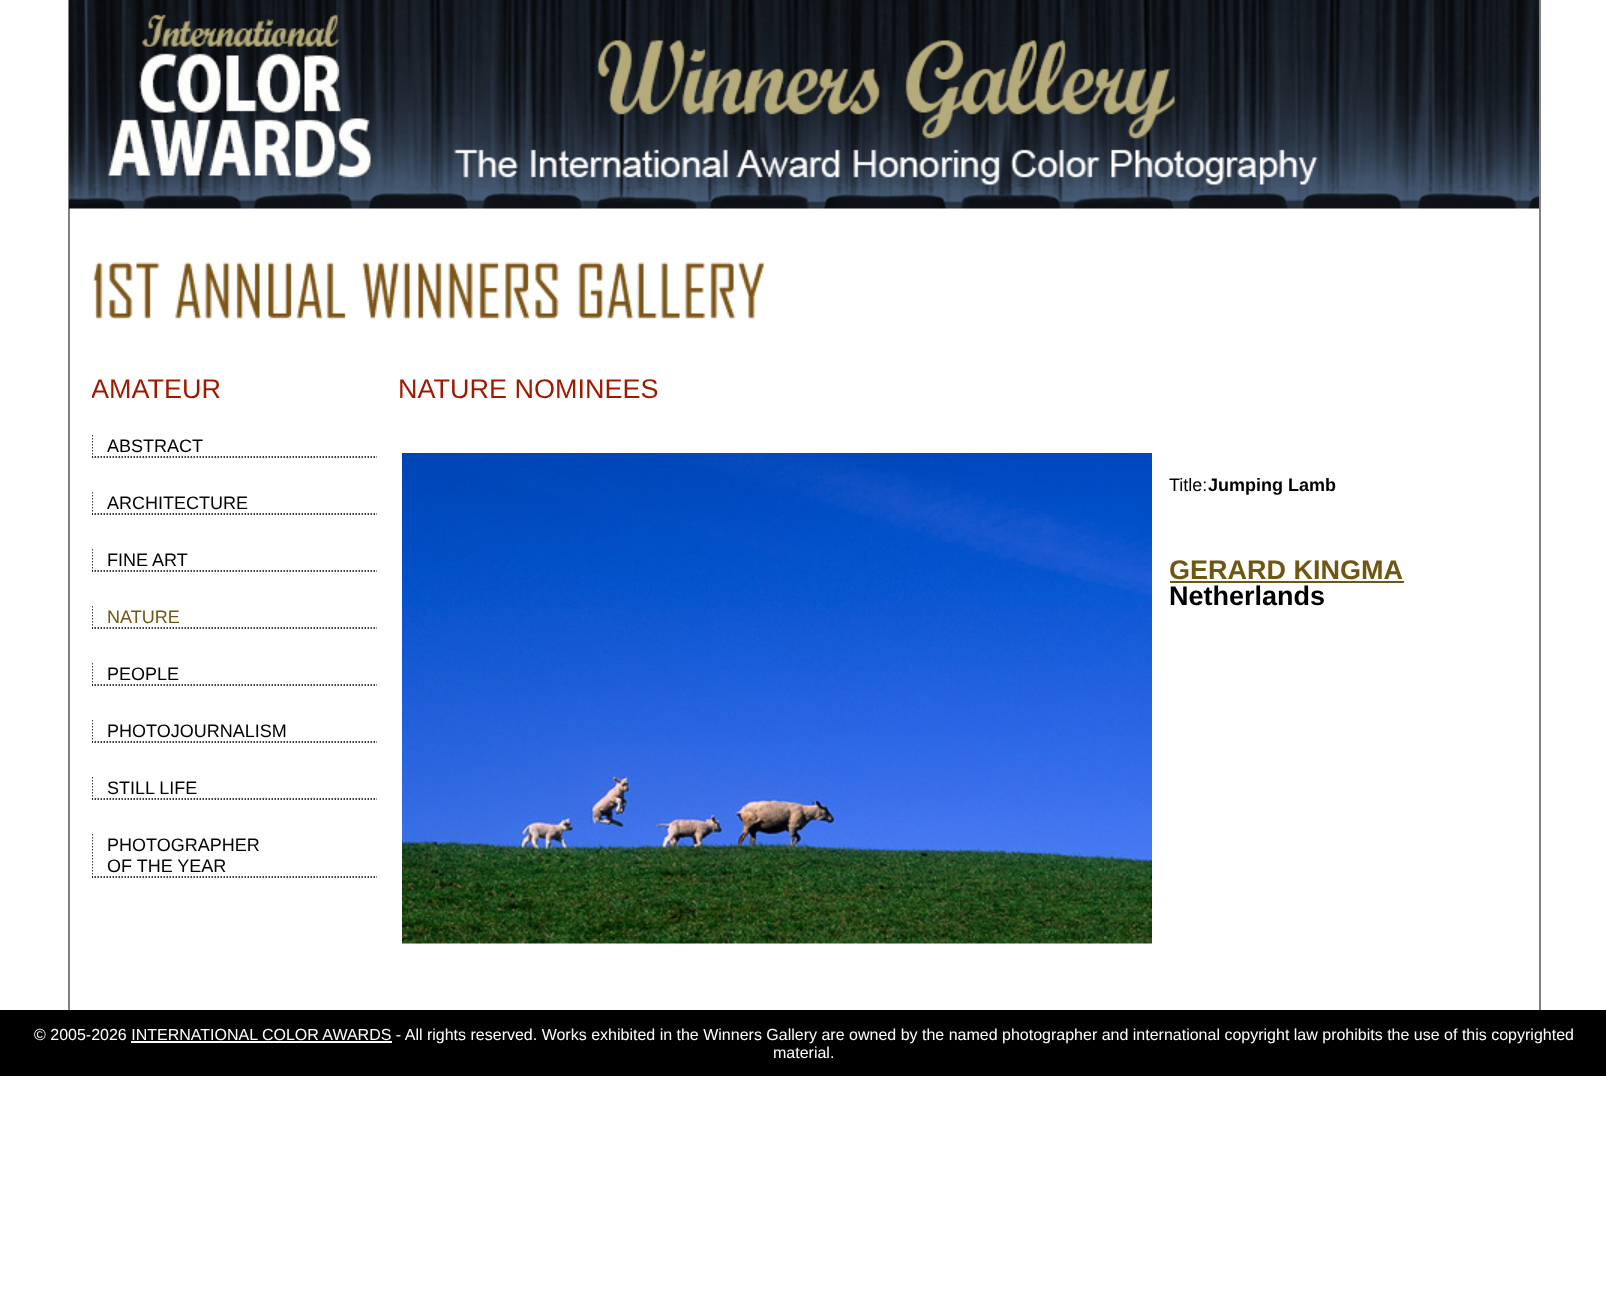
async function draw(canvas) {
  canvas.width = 1606
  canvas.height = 1312
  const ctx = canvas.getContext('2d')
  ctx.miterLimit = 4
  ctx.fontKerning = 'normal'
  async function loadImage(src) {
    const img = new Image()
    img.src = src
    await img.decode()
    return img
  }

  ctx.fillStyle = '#fff'
  ctx.fillRect(0, 0, 1606, 1312)
  ctx.fillStyle = '#808080'
  ctx.fillRect(1539, 0, 2, 1010)
  ctx.fillRect(68, 0, 2, 1010)
  ctx.drawImage(await loadImage('image0.png'), 69, 0, 1470, 209)
  ctx.drawImage(await loadImage('image1.png'), 92, 262, 673, 57)
  ctx.save()
  ctx.beginPath()
  ctx.rect(92, 351, 285, 576)
  ctx.clip()
  ctx.font = '27px Liberation Sans'
  ctx.fillStyle = '#9f1800'
  ctx.fillText('AMATEUR', 91, 398)
  ctx.beginPath()
  ctx.moveTo(91.5, 457)
  ctx.lineTo(378, 457)
  ctx.strokeStyle = '#000'
  ctx.lineWidth = 1.5
  ctx.setLineDash([1.5, 1.5])
  ctx.stroke()
  ctx.beginPath()
  ctx.moveTo(92, 435)
  ctx.lineTo(92, 457.5)
  ctx.stroke()
  ctx.restore()
  ctx.font = '18px Liberation Sans'
  ctx.fillStyle = '#000'
  ctx.fillText('ABSTRACT', 107, 452)
  ctx.save()
  ctx.beginPath()
  ctx.rect(92, 351, 285, 576)
  ctx.clip()
  ctx.beginPath()
  ctx.moveTo(91.5, 514)
  ctx.lineTo(378, 514)
  ctx.strokeStyle = '#000'
  ctx.lineWidth = 1.5
  ctx.setLineDash([1.5, 1.5])
  ctx.stroke()
  ctx.beginPath()
  ctx.moveTo(92, 492)
  ctx.lineTo(92, 514.5)
  ctx.stroke()
  ctx.restore()
  ctx.fillText('ARCHITECTURE', 107, 509)
  ctx.save()
  ctx.beginPath()
  ctx.rect(92, 351, 285, 576)
  ctx.clip()
  ctx.beginPath()
  ctx.moveTo(91.5, 571)
  ctx.lineTo(378, 571)
  ctx.strokeStyle = '#000'
  ctx.lineWidth = 1.5
  ctx.setLineDash([1.5, 1.5])
  ctx.stroke()
  ctx.beginPath()
  ctx.moveTo(92, 549)
  ctx.lineTo(92, 571.5)
  ctx.stroke()
  ctx.restore()
  ctx.fillText('FINE ART', 107, 566)
  ctx.save()
  ctx.beginPath()
  ctx.rect(92, 351, 285, 576)
  ctx.clip()
  ctx.beginPath()
  ctx.moveTo(91.5, 628)
  ctx.lineTo(378, 628)
  ctx.strokeStyle = '#000'
  ctx.lineWidth = 1.5
  ctx.setLineDash([1.5, 1.5])
  ctx.stroke()
  ctx.beginPath()
  ctx.moveTo(92, 606)
  ctx.lineTo(92, 628.5)
  ctx.stroke()
  ctx.restore()
  ctx.fillStyle = '#6f5713'
  ctx.fillText('NATURE', 107, 623)
  ctx.save()
  ctx.beginPath()
  ctx.rect(92, 351, 285, 576)
  ctx.clip()
  ctx.beginPath()
  ctx.moveTo(91.5, 685)
  ctx.lineTo(378, 685)
  ctx.strokeStyle = '#000'
  ctx.lineWidth = 1.5
  ctx.setLineDash([1.5, 1.5])
  ctx.stroke()
  ctx.beginPath()
  ctx.moveTo(92, 663)
  ctx.lineTo(92, 685.5)
  ctx.stroke()
  ctx.restore()
  ctx.fillStyle = '#000'
  ctx.fillText('PEOPLE', 107, 680)
  ctx.save()
  ctx.beginPath()
  ctx.rect(92, 351, 285, 576)
  ctx.clip()
  ctx.beginPath()
  ctx.moveTo(91.5, 742)
  ctx.lineTo(378, 742)
  ctx.strokeStyle = '#000'
  ctx.lineWidth = 1.5
  ctx.setLineDash([1.5, 1.5])
  ctx.stroke()
  ctx.beginPath()
  ctx.moveTo(92, 720)
  ctx.lineTo(92, 742.5)
  ctx.stroke()
  ctx.restore()
  ctx.fillText('PHOTOJOURNALISM', 107, 737)
  ctx.save()
  ctx.beginPath()
  ctx.rect(92, 351, 285, 576)
  ctx.clip()
  ctx.beginPath()
  ctx.moveTo(91.5, 799)
  ctx.lineTo(378, 799)
  ctx.strokeStyle = '#000'
  ctx.lineWidth = 1.5
  ctx.setLineDash([1.5, 1.5])
  ctx.stroke()
  ctx.beginPath()
  ctx.moveTo(92, 777)
  ctx.lineTo(92, 799.5)
  ctx.stroke()
  ctx.restore()
  ctx.fillText('STILL LIFE', 107, 794)
  ctx.save()
  ctx.beginPath()
  ctx.rect(92, 351, 285, 576)
  ctx.clip()
  ctx.beginPath()
  ctx.moveTo(91.5, 877)
  ctx.lineTo(378, 877)
  ctx.strokeStyle = '#000'
  ctx.lineWidth = 1.5
  ctx.setLineDash([1.5, 1.5])
  ctx.stroke()
  ctx.beginPath()
  ctx.moveTo(92, 834)
  ctx.lineTo(92, 877.5)
  ctx.stroke()
  ctx.restore()
  ctx.fillText('PHOTOGRAPHER', 107, 851)
  ctx.fillText('OF THE YEAR', 107, 872)
  ctx.font = '27px Liberation Sans'
  ctx.fillStyle = '#9f1800'
  ctx.fillText('NATURE NOMINEES', 398, 398)
  ctx.drawImage(await loadImage('image2.png'), 402, 453, 750, 491)
  ctx.font = '18px Liberation Sans'
  ctx.fillStyle = '#000'
  ctx.fillText('Title:', 1169, 491)
  ctx.font = 'bold 18px Liberation Sans'
  ctx.fillText('Jumping Lamb', 1208, 491)
  ctx.font = 'bold 27px Liberation Sans'
  ctx.fillStyle = '#6f5713'
  ctx.fillText('GERARD KINGMA', 1169, 579)
  ctx.fillRect(1170, 581, 234, 2)
  ctx.fillStyle = '#000'
  ctx.fillText('Netherlands', 1169, 605)
  ctx.fillRect(0, 1010, 1606, 66)
  ctx.font = '16px Liberation Sans'
  ctx.fillStyle = '#fff'
  ctx.fillText('© 2005-2026 INTERNATIONAL COLOR AWARDS - All rights reserved. Works exhibited in the Winners Gallery are owned by the named photographer and international copyright law prohibits the use of this copyrighted', 34, 1040)
  ctx.fillRect(131, 1041, 261, 2)
  ctx.fillText('material.', 773, 1058)
}

draw(document.querySelector('canvas'))
